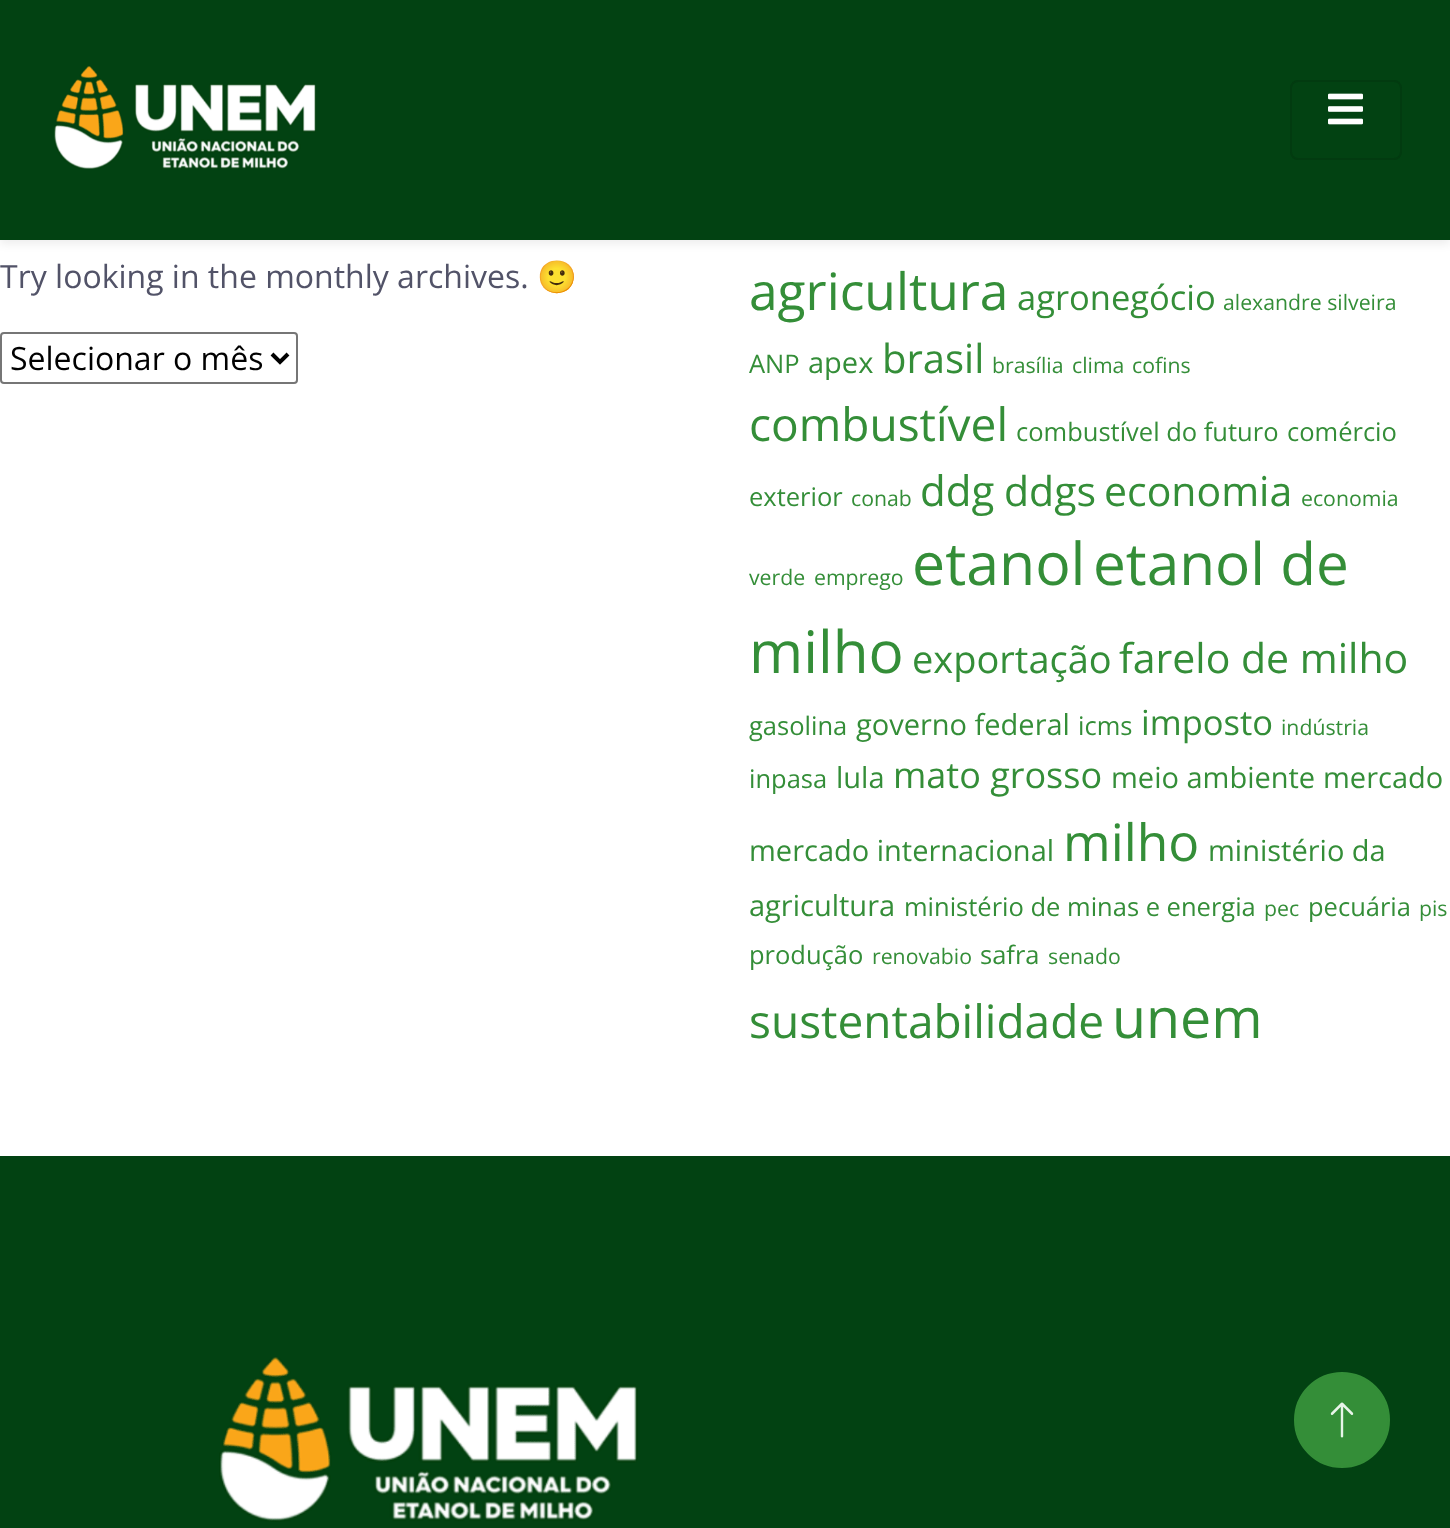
async function draw(canvas) {
  canvas.width = 1450
  canvas.height = 1528
  const ctx = canvas.getContext('2d')
  ctx.miterLimit = 4
  ctx.fontKerning = 'normal'
  async function loadImage(src) {
    const img = new Image()
    img.src = src
    await img.decode()
    return img
  }

  ctx.fillStyle = '#fff'
  ctx.fillRect(0, 0, 1450, 1528)
  ctx.fillStyle = '#00000012'
  ctx.filter = 'blur(4px)'
  ctx.beginPath()
  ctx.rect(0, 4, 1450, 240)
  ctx.fill()
  ctx.filter = 'none'
  ctx.fillStyle = '#024212'
  ctx.fillRect(0, 0, 1450, 240)
  ctx.drawImage(await loadImage('image0.png'), 54, 66, 262, 103)
  ctx.beginPath()
  ctx.roundRect(1291, 81, 110, 78, 7)
  ctx.strokeStyle = '#023b10'
  ctx.lineWidth = 2
  ctx.stroke()
  ctx.drawImage(await loadImage('image1.png'), 1328, 93, 35, 32)
  ctx.font = '32px Open Sans'
  ctx.fillStyle = '#525368'
  ctx.fillText('Try looking in the monthly archives.', 0, 288)
  ctx.font = '32px Noto Color Emoji'
  ctx.fillText('🙂', 537, 288)
  ctx.beginPath()
  ctx.roundRect(1, 333, 296, 50, 3)
  ctx.strokeStyle = '#767676'
  ctx.stroke()
  ctx.beginPath()
  ctx.moveTo(272, 354)
  ctx.lineTo(280, 362)
  ctx.lineTo(288, 354)
  ctx.strokeStyle = '#000'
  ctx.lineWidth = 4
  ctx.stroke()
  ctx.font = '32px Open Sans'
  ctx.fillStyle = '#000'
  ctx.fillText('Selecionar o mês', 10, 370)
  ctx.font = '51.5px Open Sans'
  ctx.fillStyle = '#348e38'
  ctx.fillText('agricultura', 749, 310)
  ctx.font = '34.5px Open Sans'
  ctx.fillText('agronegócio', 1017, 310)
  ctx.font = '21.25px Open Sans'
  ctx.fillText('alexandre silveira', 1223, 310)
  ctx.font = '25.5px Open Sans'
  ctx.fillText('ANP', 749, 373)
  ctx.font = '29px Open Sans'
  ctx.fillText('apex', 808, 373)
  ctx.font = '40px Open Sans'
  ctx.fillText('brasil', 882, 373)
  ctx.font = '21.25px Open Sans'
  ctx.fillText('brasília', 992, 373)
  ctx.fillText('clima', 1072, 373)
  ctx.fillText('cofins', 1132, 373)
  ctx.font = '46px Open Sans'
  ctx.fillText('combustível', 749, 441)
  ctx.font = '25.5px Open Sans'
  ctx.fillText('combustível do futuro', 1016, 441)
  ctx.fillText('comércio', 1287, 441)
  ctx.fillText('exterior', 749, 506)
  ctx.font = '21.25px Open Sans'
  ctx.fillText('conab', 851, 506)
  ctx.font = '42px Open Sans'
  ctx.fillText('ddg', 920, 506)
  ctx.font = '41px Open Sans'
  ctx.fillText('ddgs', 1004, 506)
  ctx.fillText('economia', 1104, 506)
  ctx.font = '21.25px Open Sans'
  ctx.fillText('economia', 1301, 506)
  ctx.fillText('verde', 749, 585)
  ctx.fillText('emprego', 814, 585)
  ctx.font = '59px Open Sans'
  ctx.fillText('etanol', 912, 585)
  ctx.font = '58.5px Open Sans'
  ctx.fillText('etanol de', 1093, 585)
  ctx.fillText('milho', 749, 673)
  ctx.font = '38px Open Sans'
  ctx.fillText('exportação', 912, 673)
  ctx.font = '41px Open Sans'
  ctx.fillText('farelo de milho', 1119, 673)
  ctx.font = '25.5px Open Sans'
  ctx.fillText('gasolina', 749, 735)
  ctx.font = '29px Open Sans'
  ctx.fillText('governo federal', 856, 735)
  ctx.font = '25.5px Open Sans'
  ctx.fillText('icms', 1078, 735)
  ctx.font = '34.5px Open Sans'
  ctx.fillText('imposto', 1141, 735)
  ctx.font = '21.25px Open Sans'
  ctx.fillText('indústria', 1281, 735)
  ctx.font = '25.5px Open Sans'
  ctx.fillText('inpasa', 749, 788)
  ctx.font = '29px Open Sans'
  ctx.fillText('lula', 836, 788)
  ctx.font = '36px Open Sans'
  ctx.fillText('mato grosso', 893, 788)
  ctx.font = '29px Open Sans'
  ctx.fillText('meio ambiente', 1111, 788)
  ctx.fillText('mercado', 1323, 788)
  ctx.fillText('mercado internacional', 749, 861)
  ctx.font = '51.5px Open Sans'
  ctx.fillText('milho', 1063, 861)
  ctx.font = '29px Open Sans'
  ctx.fillText('ministério da', 1208, 861)
  ctx.fillText('agricultura', 749, 916)
  ctx.font = '25.5px Open Sans'
  ctx.fillText('ministério de minas e energia', 904, 916)
  ctx.font = '21.25px Open Sans'
  ctx.fillText('pec', 1264, 916)
  ctx.font = '25.5px Open Sans'
  ctx.fillText('pecuária', 1308, 916)
  ctx.font = '21.25px Open Sans'
  ctx.fillText('pis', 1419, 916)
  ctx.font = '25.5px Open Sans'
  ctx.fillText('produção', 749, 964)
  ctx.font = '21.25px Open Sans'
  ctx.fillText('renovabio', 872, 964)
  ctx.font = '25.5px Open Sans'
  ctx.fillText('safra', 980, 964)
  ctx.font = '21.25px Open Sans'
  ctx.fillText('senado', 1048, 964)
  ctx.font = '46px Open Sans'
  ctx.fillText('sustentabilidade', 749, 1038)
  ctx.font = '55.5px Open Sans'
  ctx.fillText('unem', 1112, 1038)
  ctx.fillStyle = '#024212'
  ctx.fillRect(0, 1156, 1450, 372)
  ctx.drawImage(await loadImage('image2.png'), 219, 1357, 419, 165)
  ctx.fillStyle = '#348e38'
  ctx.beginPath()
  ctx.arc(1342, 1420, 47, 0, 2 * Math.PI)
  ctx.fill()
  ctx.strokeStyle = '#348e38'
  ctx.lineWidth = 2
  ctx.stroke()
  ctx.drawImage(await loadImage('image3.png'), 1330, 1402, 24, 36)
}

draw(document.querySelector('canvas'))
